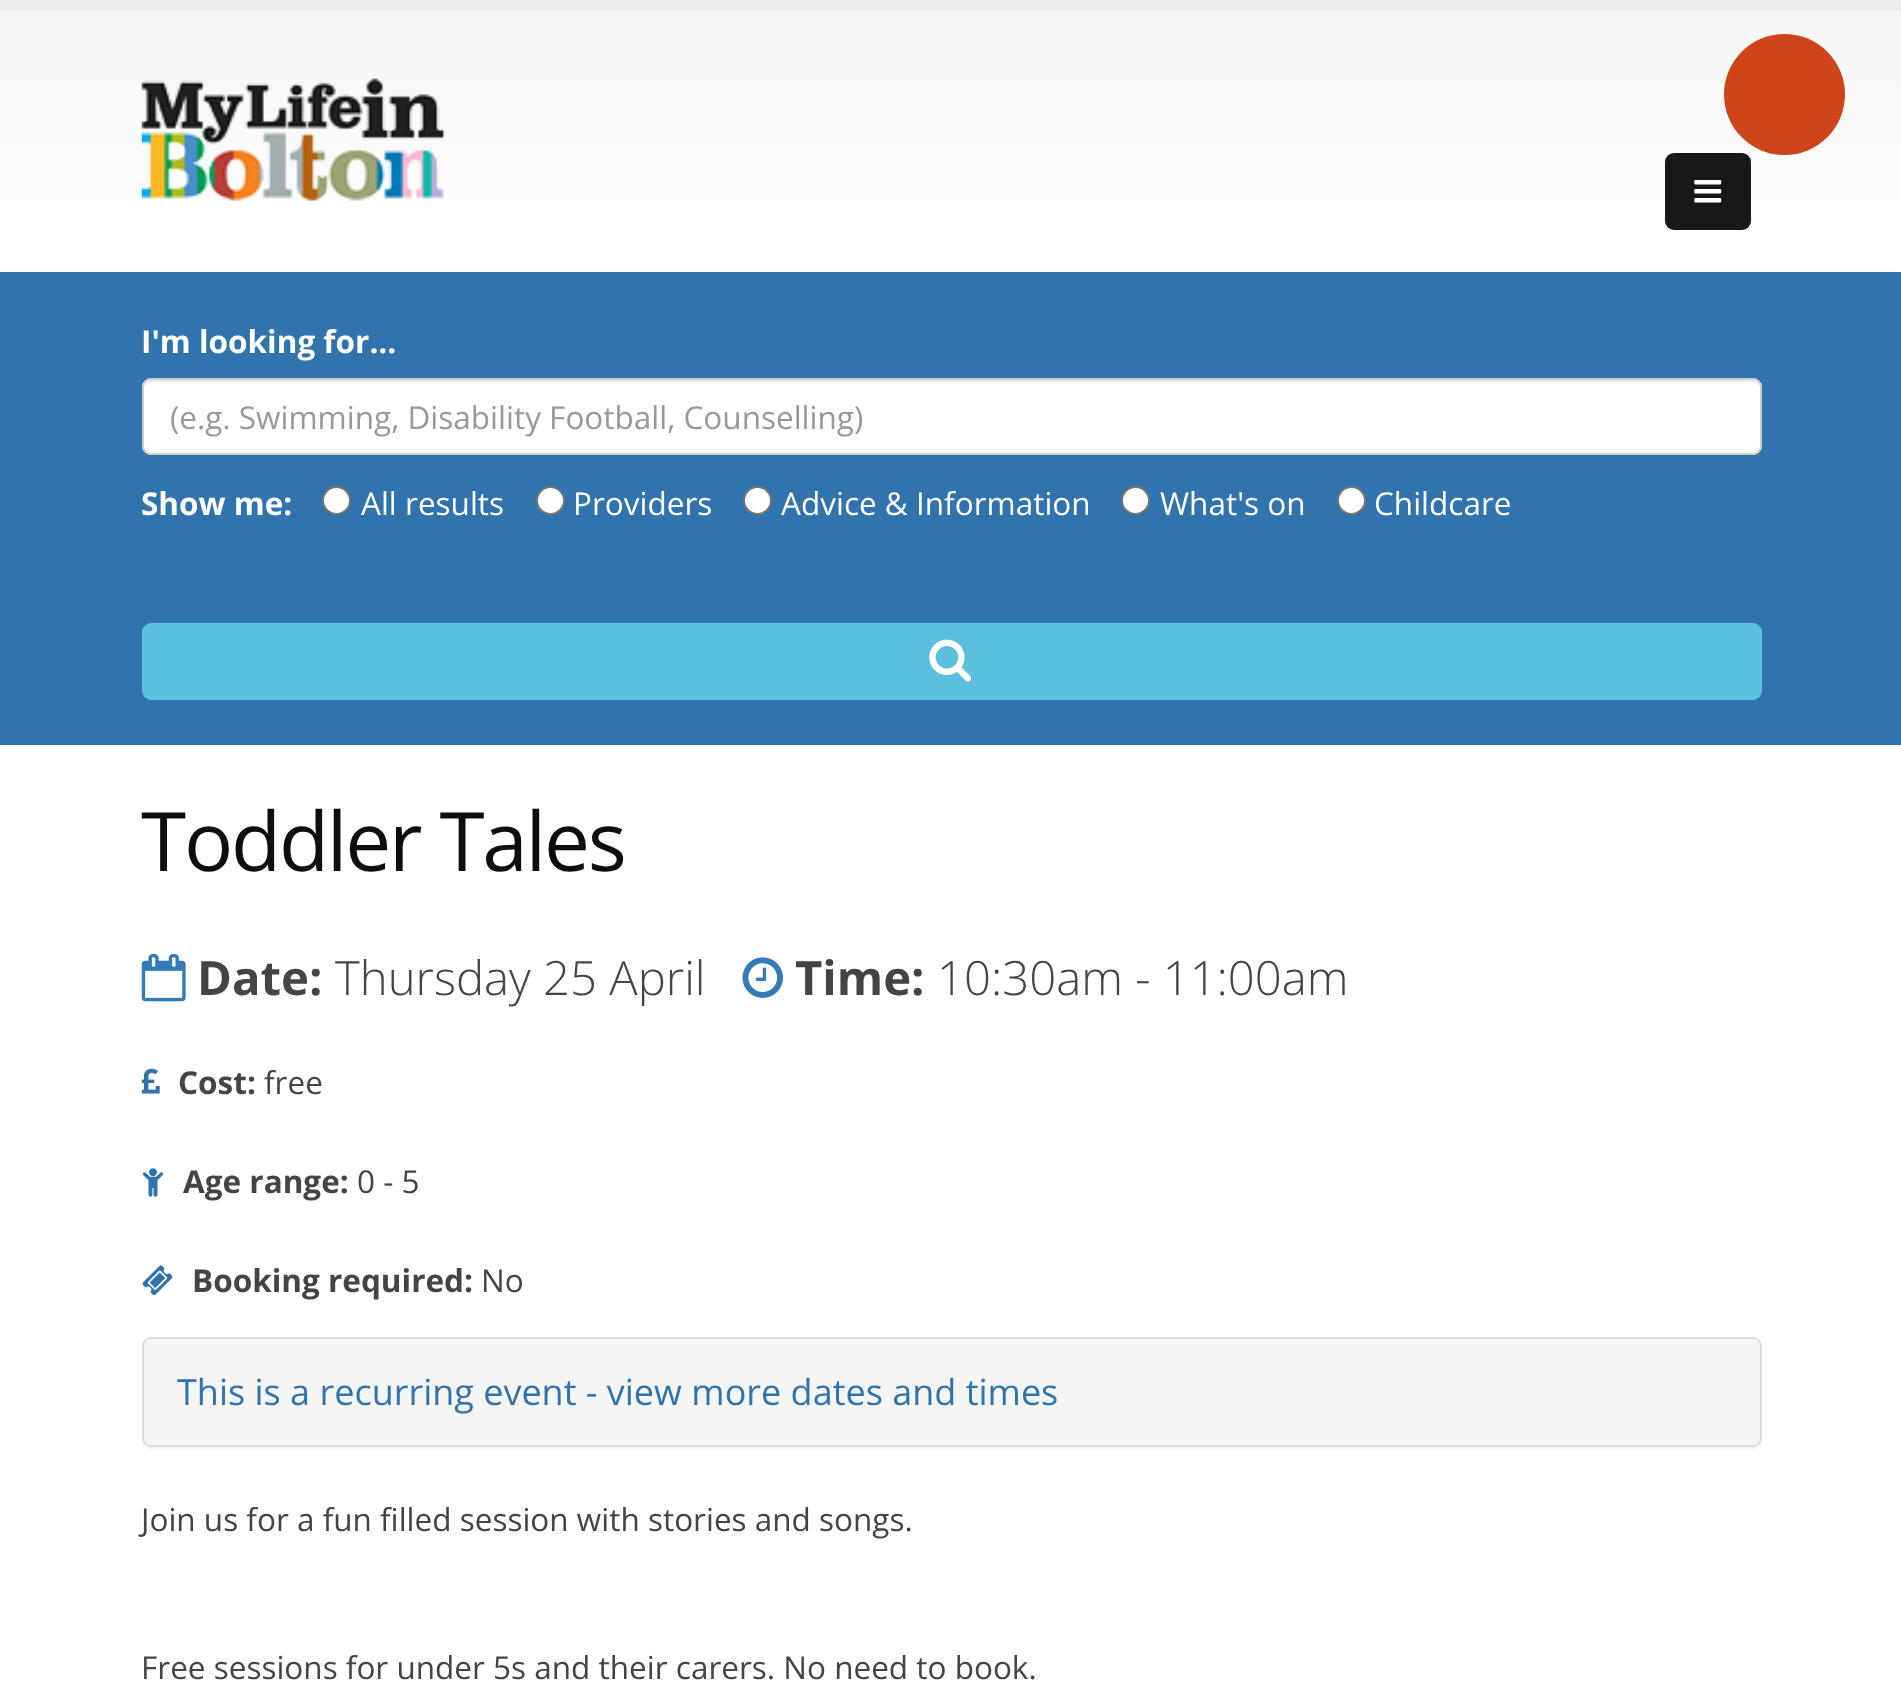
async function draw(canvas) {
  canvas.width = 1901
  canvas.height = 1695
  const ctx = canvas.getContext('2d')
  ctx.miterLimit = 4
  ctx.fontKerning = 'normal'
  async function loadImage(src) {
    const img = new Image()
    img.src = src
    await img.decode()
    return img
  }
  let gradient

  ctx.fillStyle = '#fff'
  ctx.fillRect(0, 0, 1901, 1695)
  gradient = ctx.createLinearGradient(951, 11, 951, 272)
  gradient.addColorStop(0, '#f6f6f6')
  gradient.addColorStop(1, '#fff')
  ctx.fillStyle = gradient
  ctx.fillRect(0, 11, 1901, 189)
  ctx.fillStyle = '#171717'
  ctx.beginPath()
  ctx.roundRect(1665, 153, 86, 77, 9)
  ctx.fill()
  ctx.fillStyle = '#cd4518'
  ctx.beginPath()
  ctx.arc(1784.5, 94.5, 60.5, 0, 2 * Math.PI)
  ctx.fill()
  ctx.fillStyle = '#ededed'
  ctx.fillRect(0, 0, 1901, 11)
  ctx.drawImage(await loadImage('image0.png'), 141, 78, 303, 123)
  ctx.drawImage(await loadImage('image1.png'), 1694, 180, 28, 23)
  ctx.fillStyle = '#3073ad'
  ctx.fillRect(0, 272, 1901, 473)
  ctx.font = 'bold 31.5px Open Sans'
  ctx.fillStyle = '#fff'
  ctx.fillText('I\'m looking for...', 141, 353)
  ctx.beginPath()
  ctx.roundRect(142, 378, 1620, 77, 9)
  ctx.fill()
  ctx.fillStyle = '#ececec'
  ctx.beginPath()
  ctx.moveTo(151, 382)
  ctx.lineTo(1753, 382)
  ctx.bezierCurveTo(1756, 382, 1760, 386, 1760, 389)
  ctx.bezierCurveTo(1760, 385, 1758, 380, 1753, 380)
  ctx.lineTo(151, 380)
  ctx.bezierCurveTo(146, 380, 144, 385, 144, 389)
  ctx.bezierCurveTo(144, 386, 147, 382, 151, 382)
  ctx.closePath()
  ctx.fill()
  ctx.beginPath()
  ctx.roundRect(143, 379, 1618, 75, 8)
  ctx.strokeStyle = '#ccc'
  ctx.lineWidth = 2
  ctx.stroke()
  ctx.font = '31.5px Open Sans'
  ctx.fillStyle = '#999'
  ctx.fillText('(e.g. Swimming, Disability Football, Counselling)', 170, 429)
  ctx.font = 'bold 31.5px Open Sans'
  ctx.fillStyle = '#fff'
  ctx.fillText('Show me:', 141, 515)
  ctx.beginPath()
  ctx.arc(336.5, 500.5, 13.5, 0, 2 * Math.PI)
  ctx.fill()
  ctx.strokeStyle = '#767676'
  ctx.stroke()
  ctx.font = '31.5px Open Sans'
  ctx.fillText('All results', 361, 515)
  ctx.beginPath()
  ctx.arc(550.5, 500.5, 13.5, 0, 2 * Math.PI)
  ctx.fill()
  ctx.stroke()
  ctx.fillText('Providers', 573, 515)
  ctx.beginPath()
  ctx.arc(757.5, 500.5, 13.5, 0, 2 * Math.PI)
  ctx.fill()
  ctx.stroke()
  ctx.fillText('Advice & Information', 781, 515)
  ctx.beginPath()
  ctx.arc(1135.5, 500.5, 13.5, 0, 2 * Math.PI)
  ctx.fill()
  ctx.stroke()
  ctx.fillText('What\'s on', 1160, 515)
  ctx.beginPath()
  ctx.arc(1351.5, 500.5, 13.5, 0, 2 * Math.PI)
  ctx.fill()
  ctx.stroke()
  ctx.fillText('Childcare', 1374, 515)
  ctx.fillStyle = '#5bc0de'
  ctx.beginPath()
  ctx.roundRect(143, 624, 1618, 75, 8)
  ctx.fill()
  ctx.strokeStyle = '#5bc0de'
  ctx.stroke()
  ctx.drawImage(await loadImage('image2.png'), 929, 639, 42, 43)
  ctx.letterSpacing = '-2.25px'
  ctx.font = '82px Open Sans'
  ctx.fillStyle = '#0e0e0e'
  ctx.fillText('Toddler Tales', 141, 871)
  ctx.drawImage(await loadImage('image3.png'), 141, 954, 45, 48)
  ctx.letterSpacing = '0px'
  ctx.font = 'bold 47.25px Open Sans'
  ctx.fillStyle = '#444'
  ctx.fillText('Date:', 197, 995)
  ctx.font = '300 47.25px Open Sans'
  ctx.fillText('Thursday 25 April', 335, 995)
  ctx.drawImage(await loadImage('image4.png'), 742, 957, 41, 41)
  ctx.font = 'bold 47.25px Open Sans'
  ctx.fillText('Time:', 795, 995)
  ctx.font = '300 47.25px Open Sans'
  ctx.fillText('10:30am - 11:00am', 937, 995)
  ctx.drawImage(await loadImage('image5.png'), 141, 1068, 19, 26)
  ctx.font = 'bold 31.5px Open Sans'
  ctx.fillText('Cost:', 178, 1094)
  ctx.font = '31.5px Open Sans'
  ctx.fillText('free', 264, 1094)
  ctx.drawImage(await loadImage('image6.png'), 142, 1168, 22, 29)
  ctx.font = 'bold 31.5px Open Sans'
  ctx.fillText('Age range:', 183, 1193)
  ctx.font = '31.5px Open Sans'
  ctx.fillText('0 - 5', 357, 1193)
  ctx.drawImage(await loadImage('image7.png'), 142, 1265, 31, 31)
  ctx.font = 'bold 31.5px Open Sans'
  ctx.fillText('Booking required:', 192, 1292)
  ctx.font = '31.5px Open Sans'
  ctx.fillText('No', 481, 1292)
  ctx.fillStyle = '#0000000d'
  ctx.filter = 'blur(1px)'
  ctx.beginPath()
  ctx.roundRect(142, 1339, 1620, 110, 9)
  ctx.fill()
  ctx.filter = 'none'
  ctx.beginPath()
  ctx.roundRect(143, 1338, 1618, 108, 8)
  ctx.strokeStyle = '#ddd'
  ctx.stroke()
  ctx.fillStyle = '#f5f5f5'
  ctx.beginPath()
  ctx.roundRect(144, 1339, 1616, 106, 7)
  ctx.fill()
  ctx.font = '36px Open Sans'
  ctx.fillStyle = '#3073ad'
  ctx.fillText('This is a recurring event - view more dates and times', 177, 1405)
  ctx.font = '31.5px Open Sans'
  ctx.fillStyle = '#444'
  ctx.fillText('Join us for a fun filled session with stories and songs.', 141, 1531)
  ctx.fillText('Free sessions for under 5s and their carers. No need to book.', 141, 1679)
}

draw(document.querySelector('canvas'))
